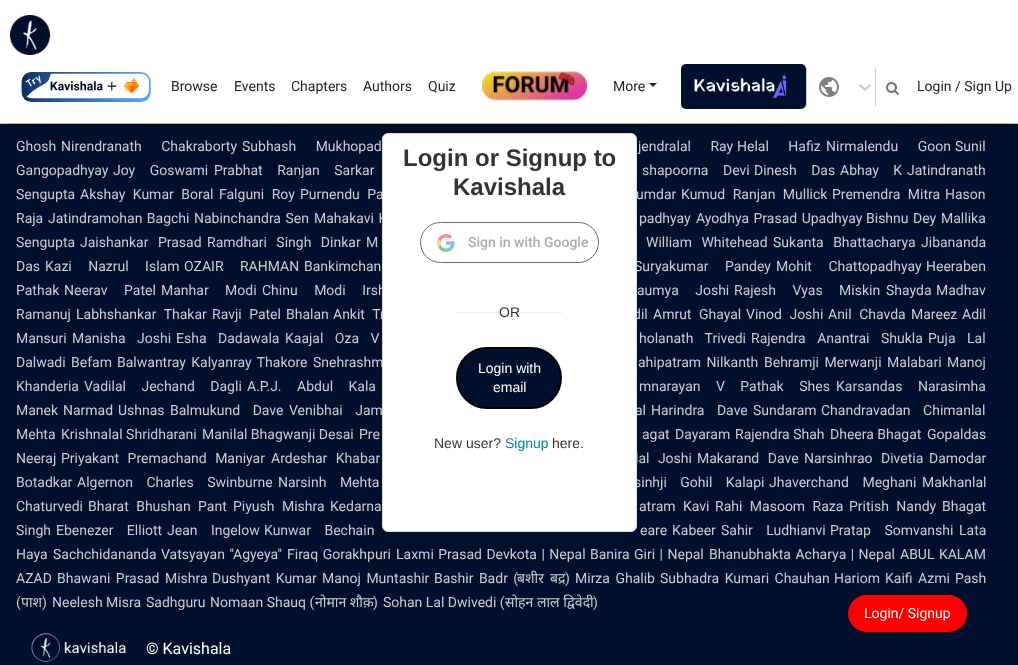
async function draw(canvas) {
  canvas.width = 1018
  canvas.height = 665
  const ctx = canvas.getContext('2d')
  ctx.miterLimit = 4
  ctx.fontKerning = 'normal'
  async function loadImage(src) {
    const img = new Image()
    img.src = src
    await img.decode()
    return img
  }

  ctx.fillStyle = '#00102c'
  ctx.fillRect(0, 0, 1018, 665)
  ctx.fillStyle = '#fff'
  ctx.fillRect(0, 0, 1018, 123)
  ctx.fillStyle = '#d3d3d3'
  ctx.fillRect(0, 123, 1018, 1)
  ctx.save()
  ctx.beginPath()
  ctx.rect(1, 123, 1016, 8)
  ctx.clip()
  ctx.fillStyle = '#00000026'
  ctx.filter = 'blur(5px)'
  ctx.beginPath()
  ctx.rect(5, 12, 1008, 113)
  ctx.fill()
  ctx.filter = 'none'
  ctx.restore()
  ctx.save()
  ctx.beginPath()
  ctx.rect(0, 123, 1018, 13)
  ctx.clip()
  ctx.fillStyle = '#0000001f'
  ctx.filter = 'blur(9px)'
  ctx.beginPath()
  ctx.rect(0, 4, 1018, 123)
  ctx.fill()
  ctx.filter = 'none'
  ctx.restore()
  ctx.drawImage(await loadImage('image0.png'), 10, 15, 40, 40)
  ctx.drawImage(await loadImage('image1.png'), 21, 72, 130, 30)
  ctx.font = '14px Roboto'
  ctx.fillStyle = '#212529'
  ctx.fillText('Browse', 171, 91)
  ctx.fillText('Events', 234, 91)
  ctx.fillText('Chapters', 291, 91)
  ctx.fillText('Authors', 363, 91)
  ctx.fillText('Quiz', 428, 91)
  ctx.drawImage(await loadImage('image2.png'), 482, 71, 105, 30)
  ctx.fillText('More', 613, 91)
  ctx.beginPath()
  ctx.moveTo(649, 83)
  ctx.lineTo(657, 83)
  ctx.lineTo(653, 87)
  ctx.closePath()
  ctx.fill()
  ctx.fillStyle = '#00102c'
  ctx.beginPath()
  ctx.roundRect(681, 64, 125, 45, 5)
  ctx.fill()
  ctx.drawImage(await loadImage('image3.png'), 694, 75, 93, 23)
  ctx.fillStyle = '#ccc'
  ctx.fillRect(875, 68, 1, 38)
  ctx.fillRect(806, 68, 1, 38)
  ctx.drawImage(await loadImage('image4.png'), 819, 77, 20, 20)
  ctx.drawImage(await loadImage('image5.png'), 859, 84, 12, 7)
  ctx.drawImage(await loadImage('image6.png'), 886, 82, 13, 13)
  ctx.fillStyle = '#212529'
  ctx.fillText('Login / Sign Up', 917, 91)
  ctx.fillStyle = '#ccc'
  ctx.fillText('Ghosh', 16, 151)
  ctx.wordSpacing = '16px'
  ctx.fillText('Nirendranath Chakraborty', 61, 151)
  ctx.fillText('Subhash Mukhopad', 242, 151)
  ctx.fillText('jendralal Ray', 638, 151)
  ctx.fillText('Helal Hafiz', 737, 151)
  ctx.fillText('Nirmalendu Goon', 826, 151)
  ctx.wordSpacing = '0px'
  ctx.fillText('Sunil', 955, 151)
  ctx.fillText('Gangopadhyay', 16, 175)
  ctx.wordSpacing = '11px'
  ctx.fillText('Joy Goswami', 113, 175)
  ctx.fillText('Prabhat Ranjan Sarkar', 214, 175)
  ctx.fillText('shapoorna Devi', 642, 175)
  ctx.fillText('Dinesh Das', 754, 175)
  ctx.fillText('Abhay K', 840, 175)
  ctx.wordSpacing = '0px'
  ctx.fillText('Jatindranath', 907, 175)
  ctx.fillText('Sengupta', 16, 199)
  ctx.wordSpacing = '4px'
  ctx.fillText('Akshay Kumar Boral', 80, 199)
  ctx.fillText('Falguni Roy', 219, 199)
  ctx.fillText('Purnendu Pa', 300, 199)
  ctx.fillText('umdar', 636, 199)
  ctx.fillText('Kumud Ranjan Mullick', 681, 199)
  ctx.fillText('Premendra Mitra', 832, 199)
  ctx.wordSpacing = '0px'
  ctx.fillText('Hason', 945, 199)
  ctx.fillText('Raja', 16, 223)
  ctx.wordSpacing = '1px'
  ctx.fillText('Jatindramohan Bagchi', 48, 223)
  ctx.fillText('Nabinchandra Sen', 194, 223)
  ctx.fillText('Mahakavi K', 314, 223)
  ctx.fillText('padhyay', 639, 223)
  ctx.fillText('Ayodhya Prasad Upadhyay', 696, 223)
  ctx.fillText('Bishnu Dey', 866, 223)
  ctx.wordSpacing = '0px'
  ctx.fillText('Mallika', 941, 223)
  ctx.fillText('Sengupta', 16, 247)
  ctx.wordSpacing = '6px'
  ctx.fillText('Jaishankar Prasad', 80, 247)
  ctx.fillText('Ramdhari Singh Dinkar', 207, 247)
  ctx.fillText('M', 366, 247)
  ctx.fillText('William Whitehead', 646, 247)
  ctx.fillText('Sukanta Bhattacharya', 773, 247)
  ctx.wordSpacing = '0px'
  ctx.fillText('Jibananda', 921, 247)
  ctx.fillText('Das', 16, 271)
  ctx.wordSpacing = '13px'
  ctx.fillText('Kazi Nazrul Islam', 45, 271)
  ctx.fillText('OZAIR RAHMAN', 184, 271)
  ctx.fillText('Bankimchan', 304, 271)
  ctx.fillText('Suryakumar Pandey', 634, 271)
  ctx.fillText('Mohit Chattopadhyay', 776, 271)
  ctx.wordSpacing = '0px'
  ctx.fillText('Heeraben', 926, 271)
  ctx.fillText('Pathak', 16, 295)
  ctx.wordSpacing = '13px'
  ctx.fillText('Neerav Patel', 64, 295)
  ctx.fillText('Manhar Modi', 161, 295)
  ctx.fillText('Chinu Modi Irsh', 262, 295)
  ctx.fillText('aumya Joshi', 637, 295)
  ctx.fillText('Rajesh Vyas Miskin', 734, 295)
  ctx.wordSpacing = '0px'
  ctx.fillText('Shayda', 886, 295)
  ctx.fillText('Madhav', 936, 295)
  ctx.fillText('Ramanuj', 16, 319)
  ctx.wordSpacing = '4px'
  ctx.fillText('Labhshankar Thakar', 76, 319)
  ctx.fillText('Ravji Patel', 212, 319)
  ctx.wordSpacing = '0px'
  ctx.fillText('Bhalan', 286, 319)
  ctx.wordSpacing = '4px'
  ctx.fillText('Ankit Tr', 333, 319)
  ctx.fillText('dil', 633, 319)
  ctx.fillText('Amrut Ghayal', 653, 319)
  ctx.fillText('Vinod Joshi', 746, 319)
  ctx.fillText('Anil Chavda', 828, 319)
  ctx.wordSpacing = '0px'
  ctx.fillText('Mareez', 911, 319)
  ctx.fillText('Adil', 962, 319)
  ctx.fillText('Mansuri', 16, 343)
  ctx.wordSpacing = '8px'
  ctx.fillText('Manisha Joshi', 72, 343)
  ctx.fillText('Esha Dadawala', 176, 343)
  ctx.fillText('Kaajal Oza V', 285, 343)
  ctx.fillText('holanath Trivedi', 639, 343)
  ctx.fillText('Rajendra Anantrai Shukla', 751, 343)
  ctx.fillText('Puja Lal', 928, 343)
  ctx.wordSpacing = '0px'
  ctx.fillText('Dalwadi', 16, 367)
  ctx.fillText('Befam', 71, 367)
  ctx.wordSpacing = '2px'
  ctx.fillText('Balwantray Kalyanray Thakore', 117, 367)
  ctx.wordSpacing = '0px'
  ctx.fillText('Snehrashm', 313, 367)
  ctx.wordSpacing = '2px'
  ctx.fillText('ahipatram Nilkanth', 638, 367)
  ctx.fillText('Behramji Merwanji Malabari', 764, 367)
  ctx.wordSpacing = '0px'
  ctx.fillText('Manoj', 947, 367)
  ctx.fillText('Khanderia', 16, 391)
  ctx.wordSpacing = '12px'
  ctx.fillText('Vadilal Jechand Dagli', 84, 391)
  ctx.fillText('A.P.J. Abdul Kala', 247, 391)
  ctx.fillText('mnarayan V Pathak Shes', 639, 391)
  ctx.fillText('Karsandas Narasimha', 836, 391)
  ctx.wordSpacing = '0px'
  ctx.fillText('Manek', 16, 415)
  ctx.fillText('Narmad', 63, 415)
  ctx.fillText('Ushnas', 118, 415)
  ctx.wordSpacing = '9px'
  ctx.fillText('Balmukund Dave', 170, 415)
  ctx.fillText('Venibhai Jam', 289, 415)
  ctx.fillText('al', 635, 415)
  ctx.fillText('Harindra Dave', 651, 415)
  ctx.wordSpacing = '0px'
  ctx.fillText('Sundaram', 753, 415)
  ctx.wordSpacing = '9px'
  ctx.fillText('Chandravadan Chimanlal', 821, 415)
  ctx.wordSpacing = '0px'
  ctx.fillText('Mehta', 16, 439)
  ctx.fillText('Krishnalal Shridharani', 61, 439)
  ctx.fillText('Manilal Bhagwanji Desai', 202, 439)
  ctx.fillText('Pre', 359, 439)
  ctx.fillText('agat', 642, 439)
  ctx.fillText('Dayaram', 675, 439)
  ctx.fillText('Rajendra Shah', 735, 439)
  ctx.fillText('Dheera Bhagat', 830, 439)
  ctx.fillText('Gopaldas', 927, 439)
  ctx.fillText('Neeraj', 16, 463)
  ctx.wordSpacing = '5px'
  ctx.fillText('Priyakant Premachand Maniyar', 61, 463)
  ctx.fillText('Ardeshar Khabar', 271, 463)
  ctx.fillText('lal Joshi', 635, 463)
  ctx.fillText('Makarand Dave', 697, 463)
  ctx.fillText('Narsinhrao Divetia', 804, 463)
  ctx.wordSpacing = '0px'
  ctx.fillText('Damodar', 929, 463)
  ctx.fillText('Botadkar', 16, 487)
  ctx.wordSpacing = '10px'
  ctx.fillText('Algernon Charles Swinburne', 77, 487)
  ctx.fillText('Narsinh Mehta', 278, 487)
  ctx.fillText('sinhji Gohil Kalapi', 634, 487)
  ctx.fillText('Jhaverchand Meghani', 769, 487)
  ctx.wordSpacing = '0px'
  ctx.fillText('Makhanlal', 922, 487)
  ctx.fillText('Chaturvedi', 16, 511)
  ctx.wordSpacing = '4px'
  ctx.fillText('Bharat Bhushan Pant', 88, 511)
  ctx.fillText('Piyush Mishra', 233, 511)
  ctx.fillText('Kedarna', 330, 511)
  ctx.fillText('atram Kavi', 639, 511)
  ctx.fillText('Rahi Masoom Raza', 715, 511)
  ctx.fillText('Pritish Nandy', 849, 511)
  ctx.wordSpacing = '0px'
  ctx.fillText('Bhagat', 942, 511)
  ctx.fillText('Singh', 16, 535)
  ctx.wordSpacing = '10px'
  ctx.fillText('Ebenezer Elliott', 56, 535)
  ctx.fillText('Jean Ingelow', 167, 535)
  ctx.fillText('Kunwar Bechain', 264, 535)
  ctx.fillText('eare', 640, 535)
  ctx.wordSpacing = '0px'
  ctx.fillText('Kabeer', 672, 535)
  ctx.wordSpacing = '10px'
  ctx.fillText('Sahir Ludhianvi', 721, 535)
  ctx.fillText('Pratap Somvanshi', 830, 535)
  ctx.wordSpacing = '0px'
  ctx.fillText('Lata', 959, 535)
  ctx.fillText('Haya', 16, 559)
  ctx.wordSpacing = '1px'
  ctx.fillText('Sachchidananda Vatsyayan "Agyeya"', 53, 559)
  ctx.fillText('Firaq Gorakhpuri', 287, 559)
  ctx.fillText('Laxmi Prasad Devkota | Nepal', 396, 559)
  ctx.fillText('Banira Giri | Nepal', 590, 559)
  ctx.fillText('Bhanubhakta Acharya | Nepal', 709, 559)
  ctx.fillText('ABUL KALAM', 900, 559)
  ctx.wordSpacing = '0px'
  ctx.fillText('AZAD', 16, 583)
  ctx.wordSpacing = '2px'
  ctx.fillText('Bhawani Prasad Mishra', 57, 583)
  ctx.fillText('Dushyant Kumar', 212, 583)
  ctx.fillText('Manoj Muntashir', 322, 583)
  ctx.fillText('Bashir Badr (', 434, 583)
  ctx.wordSpacing = '0px'
  ctx.font = '14px Noto Sans'
  ctx.fillText('बशीर', 517, 583)
  ctx.fillText('बद्र', 550, 583)
  ctx.font = '14px Roboto'
  ctx.fillText(')', 565, 583)
  ctx.wordSpacing = '2px'
  ctx.fillText('Mirza Ghalib', 575, 583)
  ctx.fillText('Subhadra Kumari Chauhan', 660, 583)
  ctx.wordSpacing = '0px'
  ctx.fillText('Hariom', 834, 583)
  ctx.wordSpacing = '2px'
  ctx.fillText('Kaifi Azmi', 885, 583)
  ctx.wordSpacing = '0px'
  ctx.fillText('Pash', 955, 583)
  ctx.fillText('(', 16, 607)
  ctx.font = '14px Noto Sans'
  ctx.fillText('पाश', 21, 607)
  ctx.font = '14px Roboto'
  ctx.fillText(')', 42, 607)
  ctx.fillText('Neelesh Misra', 52, 607)
  ctx.fillText('Sadhguru', 146, 607)
  ctx.fillText('Nomaan Shauq (', 210, 607)
  ctx.font = '14px Noto Sans'
  ctx.fillText('नोमान शौक़', 315, 607)
  ctx.font = '14px Roboto'
  ctx.fillText(')', 373, 607)
  ctx.fillText('Sohan Lal Dwivedi (', 383, 607)
  ctx.font = '14px Noto Sans'
  ctx.fillText('सोहन लाल द्विवेदी', 505, 607)
  ctx.font = '14px Roboto'
  ctx.fillText(')', 593, 607)
  ctx.drawImage(await loadImage('image7.png'), 31, 633, 95, 29)
  ctx.font = '16px Roboto'
  ctx.fillStyle = '#fff'
  ctx.fillText('© Kavishala', 146, 654)
  ctx.fillStyle = '#f00'
  ctx.beginPath()
  ctx.roundRect(848, 595, 119, 37, 18.5)
  ctx.fill()
  ctx.font = '14px Roboto'
  ctx.fillStyle = '#fff'
  ctx.fillText('Login/ Signup', 864, 618)
  ctx.beginPath()
  ctx.roundRect(382.5, 133.5, 254, 398, 5.5)
  ctx.fill()
  ctx.strokeStyle = '#ddd'
  ctx.stroke()
  ctx.font = 'bold 24px Liberation Sans'
  ctx.fillStyle = '#333'
  ctx.fillText('Login or Signup to', 403, 166)
  ctx.fillText('Kavishala', 453, 195)
  ctx.beginPath()
  ctx.roundRect(420.5, 222.5, 178, 40, 20)
  ctx.strokeStyle = '#686868'
  ctx.stroke()
  ctx.drawImage(await loadImage('image8.png'), 437, 234, 18, 18)
  ctx.font = '500 14px Roboto'
  ctx.fillStyle = '#acacac'
  ctx.fillText('Sign in with Google', 468, 247)
  ctx.fillStyle = '#eee'
  ctx.fillRect(456, 312, 43, 1)
  ctx.font = '14px Liberation Sans'
  ctx.fillStyle = '#333'
  ctx.fillText('OR', 499, 317)
  ctx.fillStyle = '#eee'
  ctx.fillRect(520, 312, 42, 1)
  ctx.fillStyle = '#00102c'
  ctx.beginPath()
  ctx.roundRect(457, 348, 104, 60, 30)
  ctx.fill()
  ctx.strokeStyle = '#000'
  ctx.lineWidth = 2
  ctx.stroke()
  ctx.fillStyle = '#fff'
  ctx.fillText('Login with', 478, 373)
  ctx.fillText('email', 493, 392)
  ctx.fillStyle = '#333'
  ctx.fillText('New user?', 434, 448)
  ctx.fillStyle = '#008b8b'
  ctx.fillText('Signup', 505, 448)
  ctx.fillStyle = '#333'
  ctx.fillText('here.', 552, 448)
}

draw(document.querySelector('canvas'))
